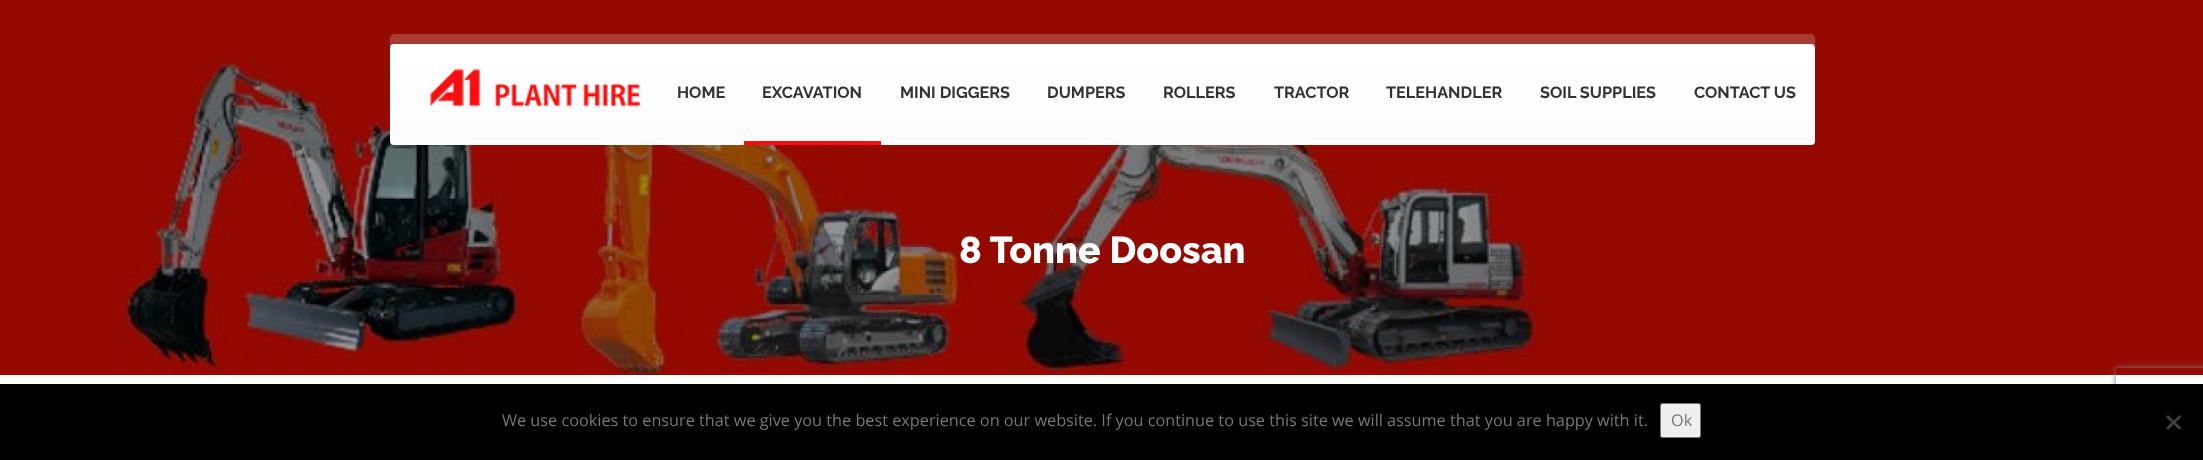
async function draw(canvas) {
  canvas.width = 2203
  canvas.height = 460
  const ctx = canvas.getContext('2d')
  ctx.miterLimit = 4
  ctx.fontKerning = 'normal'
  async function loadImage(src) {
    const img = new Image()
    img.src = src
    await img.decode()
    return img
  }
  let gradient

  ctx.fillStyle = '#fff'
  ctx.fillRect(0, 0, 2203, 460)
  ctx.drawImage(await loadImage('image1.png'), 0, 0, 2203, 375)
  ctx.fillStyle = '#aa3b33'
  ctx.beginPath()
  ctx.moveTo(394, 34)
  ctx.bezierCurveTo(388, 34, 390, 44, 390, 48)
  ctx.bezierCurveTo(390, 45, 392, 44, 394, 44)
  ctx.lineTo(1811, 44)
  ctx.bezierCurveTo(1813, 44, 1815, 45, 1815, 48)
  ctx.bezierCurveTo(1815, 44, 1817, 34, 1811, 34)
  ctx.closePath()
  ctx.fill()
  gradient = ctx.createLinearGradient(1103, 44, 1103, 145)
  gradient.addColorStop(0, '#fff')
  gradient.addColorStop(1, '#fcfcfc')
  ctx.fillStyle = gradient
  ctx.beginPath()
  ctx.roundRect(390, 44, 1425, 101, 4)
  ctx.fill()
  ctx.drawImage(await loadImage('image0.png'), 429, 68, 211, 39)
  ctx.font = 'bold 16.25px Raleway'
  ctx.fillStyle = '#333'
  ctx.fillText('HOME', 677, 98)
  ctx.fillStyle = '#f70f0f'
  ctx.fillRect(744, 141, 137, 4)
  ctx.fillStyle = '#333'
  ctx.fillText('EXCAVATION', 762, 98)
  ctx.fillText('MINI DIGGERS', 900, 98)
  ctx.fillText('DUMPERS', 1047, 98)
  ctx.fillText('ROLLERS', 1163, 98)
  ctx.fillText('TRACTOR', 1274, 98)
  ctx.fillText('TELEHANDLER', 1386, 98)
  ctx.fillText('SOIL SUPPLIES', 1540, 98)
  ctx.fillText('CONTACT US', 1694, 98)
  ctx.font = '100 37.5px Raleway'
  ctx.fillStyle = '#fff'
  ctx.fillText('8 Tonne Doosan', 959, 263)
  ctx.save()
  ctx.beginPath()
  ctx.moveTo(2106, 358)
  ctx.lineTo(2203, 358)
  ctx.lineTo(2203, 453)
  ctx.lineTo(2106, 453)
  ctx.closePath()
  ctx.moveTo(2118.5, 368)
  ctx.lineTo(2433.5, 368)
  ctx.bezierCurveTo(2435, 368, 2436, 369, 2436, 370.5)
  ctx.lineTo(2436, 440.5)
  ctx.bezierCurveTo(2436, 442, 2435, 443, 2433.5, 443)
  ctx.lineTo(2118.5, 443)
  ctx.bezierCurveTo(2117, 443, 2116, 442, 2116, 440.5)
  ctx.lineTo(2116, 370.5)
  ctx.bezierCurveTo(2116, 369, 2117, 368, 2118.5, 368)
  ctx.closePath()
  ctx.clip('evenodd')
  ctx.fillStyle = '#808080'
  ctx.filter = 'blur(3px)'
  ctx.beginPath()
  ctx.roundRect(2116, 368, 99, 75, 2.5)
  ctx.fill()
  ctx.filter = 'none'
  ctx.restore()
  ctx.fillStyle = '#000'
  ctx.fillRect(0, 384, 2203, 76)
  ctx.font = '16.25px Open Sans'
  ctx.fillStyle = '#777'
  ctx.fillText('We use cookies to ensure that we give you the best experience on our website. If you continue to use this site we will assume that you are happy with it.', 502, 426)
  ctx.fillStyle = '#efefef'
  ctx.beginPath()
  ctx.roundRect(1660.5, 403.5, 40, 34, 2)
  ctx.fill()
  ctx.strokeStyle = '#767676'
  ctx.stroke()
  ctx.fillStyle = '#777'
  ctx.fillText('Ok', 1671, 426)
  ctx.fillStyle = '#404040'
  ctx.beginPath()
  ctx.moveTo(2179.5, 415)
  ctx.lineTo(2181.5, 417)
  ctx.lineTo(2168, 430)
  ctx.lineTo(2166, 428)
  ctx.closePath()
  ctx.fill()
  ctx.beginPath()
  ctx.moveTo(2166, 417)
  ctx.lineTo(2168, 415)
  ctx.lineTo(2181.5, 428)
  ctx.lineTo(2179.5, 430)
  ctx.closePath()
  ctx.fill()
}

draw(document.querySelector('canvas'))
